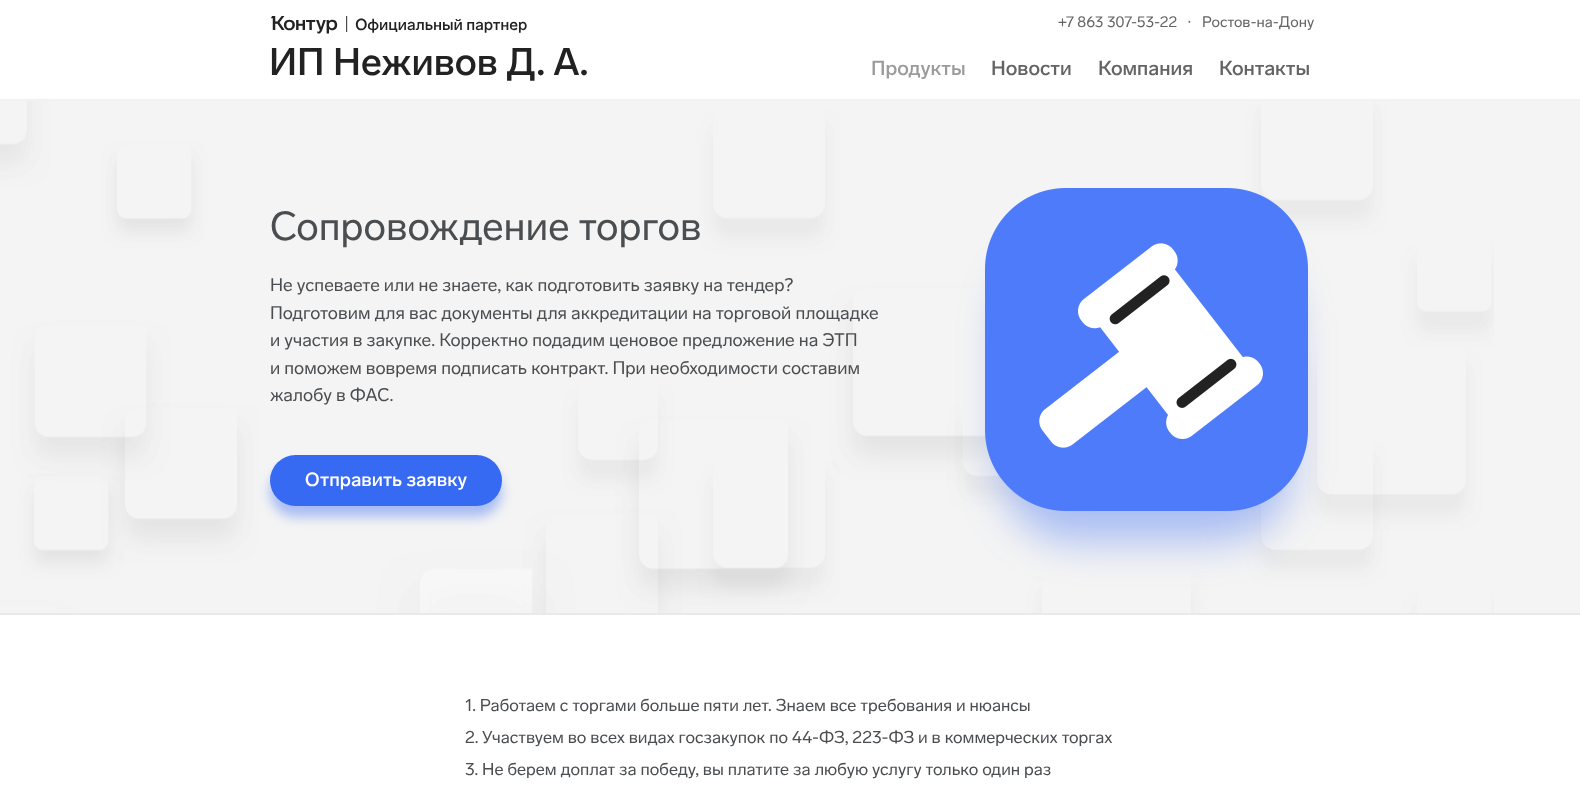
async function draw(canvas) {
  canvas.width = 1580
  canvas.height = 785
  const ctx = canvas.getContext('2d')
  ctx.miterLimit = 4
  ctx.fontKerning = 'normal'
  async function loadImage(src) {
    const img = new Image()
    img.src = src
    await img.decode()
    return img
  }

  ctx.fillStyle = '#fff'
  ctx.fillRect(0, 0, 1580, 785)
  ctx.fillStyle = '#f2f2f2'
  ctx.fillRect(0, 99, 1580, 2)
  ctx.drawImage(await loadImage('image0.png'), 271, 16, 256, 18)
  ctx.font = '500 38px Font'
  ctx.fillStyle = '#222'
  ctx.fillText('ИП Неживов Д. А.', 269, 75)
  ctx.font = '15px Font'
  ctx.fillStyle = '#646464'
  ctx.fillText('+7 863 307-53-22', 1058, 27)
  ctx.font = '15px DejaVu Sans'
  ctx.fillText('⋅', 1187, 27)
  ctx.font = '15px Font'
  ctx.fillText('Ростов-на-Дону', 1202, 27)
  ctx.font = '500 20px Font'
  ctx.fillStyle = '#9b9b9b'
  ctx.fillText('Продукты', 871, 75)
  ctx.fillStyle = '#646464'
  ctx.fillText('Новости', 991, 75)
  ctx.fillText('Компания', 1098, 75)
  ctx.fillText('Контакты', 1219, 75)
  ctx.fillStyle = '#e9e9e9'
  ctx.fillRect(0, 613, 1580, 2)
  ctx.fillStyle = '#f4f4f4'
  ctx.fillRect(1494, 101, 86, 512)
  ctx.drawImage(await loadImage('image1.png'), 0, 101, 1494, 512)
  ctx.font = '40px Font'
  ctx.fillStyle = '#4b4e51'
  ctx.fillText('Сопровождение торгов', 270, 240)
  ctx.font = '18px Font'
  ctx.fillText('Не успеваете или не знаете, как подготовить заявку на тендер?', 270, 291)
  ctx.fillText('Подготовим для вас документы для аккредитации на торговой площадке', 270, 319)
  ctx.fillText('и участия в закупке. Корректно подадим ценовое предложение на ЭТП', 270, 346)
  ctx.fillText('и поможем вовремя подписать контракт. При необходимости составим', 270, 374)
  ctx.fillText('жалобу в ФАС.', 270, 401)
  ctx.fillStyle = '#366af366'
  ctx.filter = 'blur(6px)'
  ctx.beginPath()
  ctx.roundRect(270, 466, 232, 51, 25.5)
  ctx.fill()
  ctx.filter = 'none'
  ctx.fillStyle = '#366af3'
  ctx.beginPath()
  ctx.roundRect(270, 455, 232, 51, 25.5)
  ctx.fill()
  ctx.font = '500 19px Font'
  ctx.fillStyle = '#fff'
  ctx.fillText('Отправить заявку', 305, 486)
  ctx.fillStyle = '#366af366'
  ctx.filter = 'blur(20px)'
  ctx.beginPath()
  ctx.roundRect(1001, 250, 291, 291, 73)
  ctx.fill()
  ctx.filter = 'none'
  ctx.drawImage(await loadImage('image2.png'), 985, 188, 323, 323)
  ctx.font = '17px Font'
  ctx.fillStyle = '#4b4e51'
  ctx.fillText('1. Работаем с торгами больше пяти лет. Знаем все требования и нюансы', 465, 711)
  ctx.fillText('2. Участвуем во всех видах госзакупок по 44-ФЗ, 223-ФЗ и в коммерческих торгах', 465, 743)
  ctx.fillText('3. Не берем доплат за победу, вы платите за любую услугу только один раз', 465, 775)
}

draw(document.querySelector('canvas'))
